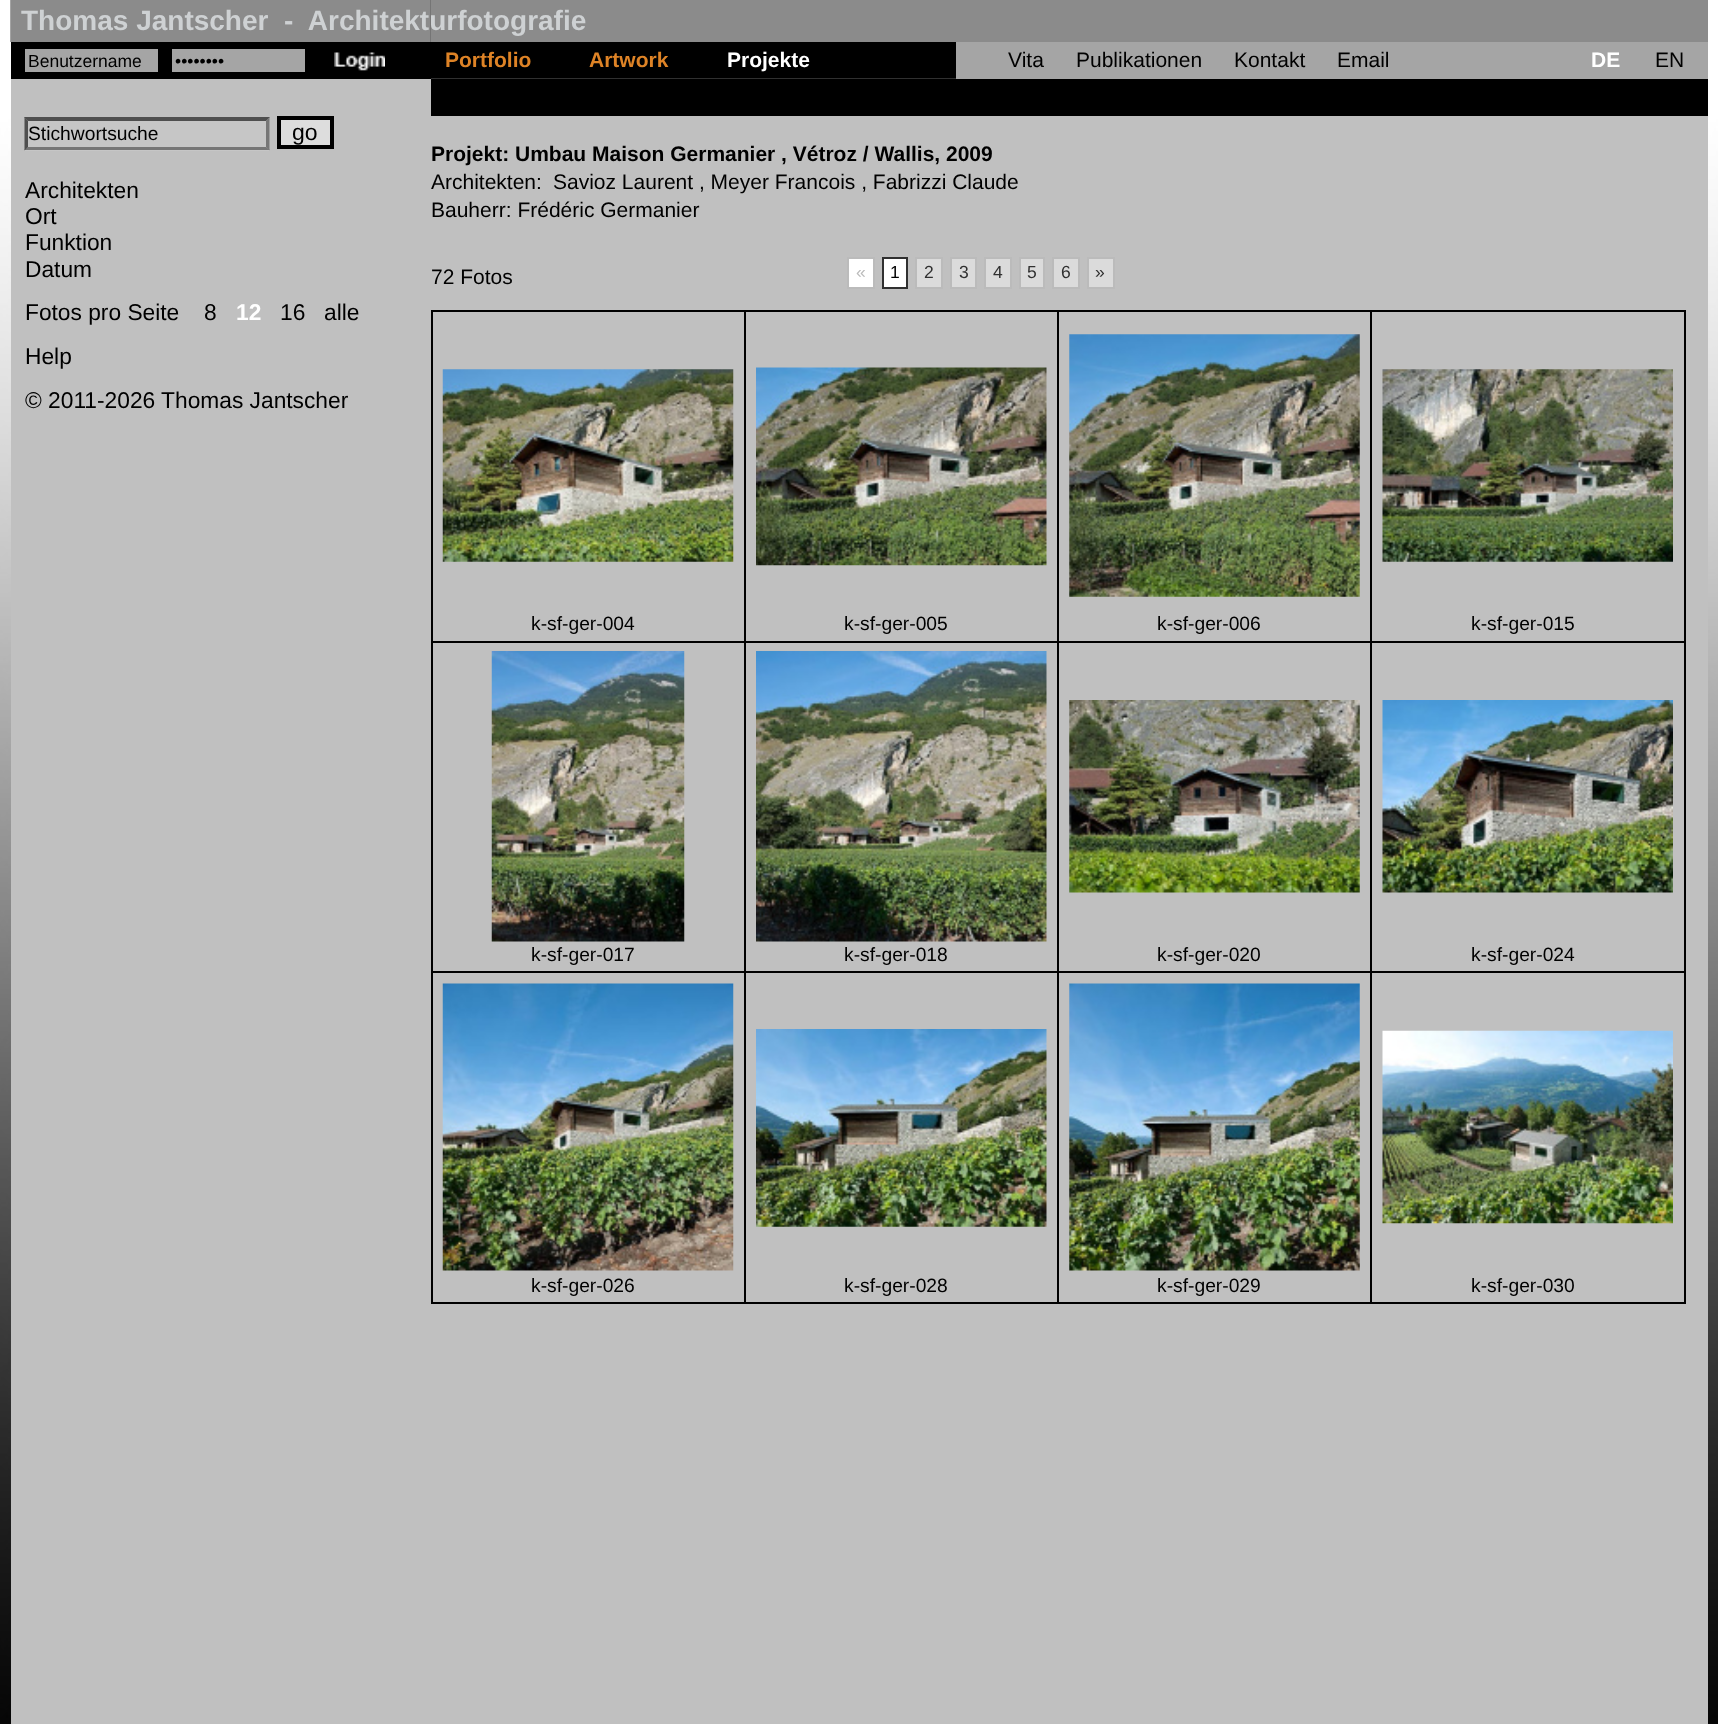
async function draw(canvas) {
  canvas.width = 1718
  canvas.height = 1724
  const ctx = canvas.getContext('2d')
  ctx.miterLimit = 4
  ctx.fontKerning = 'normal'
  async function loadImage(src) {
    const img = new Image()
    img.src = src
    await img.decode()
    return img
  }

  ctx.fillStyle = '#fff'
  ctx.fillRect(0, 0, 1718, 1724)
  ctx.drawImage(await loadImage('image0.png'), 0, 0, 1718, 1724)
  ctx.fillStyle = '#c0c0c0'
  ctx.fillRect(11, 0, 1697, 1724)
  ctx.fillStyle = '#67676799'
  ctx.fillRect(10, 0, 421, 42)
  ctx.fillRect(430, 0, 1278, 42)
  ctx.font = 'bold 28px Liberation Sans'
  ctx.fillStyle = '#ced1d3'
  ctx.fillText('Thomas Jantscher  -  Architekturfotografie', 21, 30)
  ctx.fillStyle = '#000'
  ctx.fillRect(11, 42, 420, 37)
  ctx.fillStyle = '#a5a5a5'
  ctx.fillRect(25, 49, 133, 23)
  ctx.font = '17.5px Liberation Sans'
  ctx.fillStyle = '#000'
  ctx.fillText('Benutzername', 28, 67)
  ctx.fillStyle = '#a5a5a5'
  ctx.fillRect(172, 49, 133, 23)
  ctx.fillStyle = '#000'
  ctx.fillText('••••••••', 175, 67)
  ctx.drawImage(await loadImage('image1.png'), 334, 52, 51, 19)
  ctx.fillStyle = '#c6c6c6'
  ctx.fillRect(25, 117, 245, 34)
  ctx.fillStyle = '#4f4f4f'
  ctx.beginPath()
  ctx.moveTo(24, 117)
  ctx.lineTo(270, 117)
  ctx.lineTo(266, 121)
  ctx.lineTo(28, 121)
  ctx.closePath()
  ctx.fill()
  ctx.fillStyle = '#767676'
  ctx.beginPath()
  ctx.moveTo(269.5, 117)
  ctx.lineTo(269.5, 150.5)
  ctx.lineTo(266, 147)
  ctx.lineTo(266, 121)
  ctx.closePath()
  ctx.fill()
  ctx.beginPath()
  ctx.moveTo(270, 150)
  ctx.lineTo(24, 150)
  ctx.lineTo(28, 147)
  ctx.lineTo(266, 147)
  ctx.closePath()
  ctx.fill()
  ctx.fillStyle = '#4f4f4f'
  ctx.beginPath()
  ctx.moveTo(24.5, 150.5)
  ctx.lineTo(24.5, 117)
  ctx.lineTo(28, 121)
  ctx.lineTo(28, 147)
  ctx.closePath()
  ctx.fill()
  ctx.font = '19.25px Liberation Sans'
  ctx.fillStyle = '#000'
  ctx.fillText('Stichwortsuche', 28, 140)
  ctx.fillStyle = '#ddd'
  ctx.beginPath()
  ctx.rect(279, 118, 53, 29)
  ctx.fill()
  ctx.strokeStyle = '#000'
  ctx.lineWidth = 4
  ctx.stroke()
  ctx.font = '23px Liberation Sans'
  ctx.fillStyle = '#000'
  ctx.fillText('go', 292, 140)
  ctx.font = '22.75px Liberation Sans'
  ctx.fillText('Architekten', 25, 198)
  ctx.fillText('Ort', 25, 224)
  ctx.fillText('Funktion', 25, 250)
  ctx.fillText('Datum', 25, 277)
  ctx.fillText('Fotos pro Seite', 25, 320)
  ctx.fillText('8', 204, 320)
  ctx.font = 'bold 22.75px Liberation Sans'
  ctx.fillStyle = '#fff'
  ctx.fillText('12', 236, 320)
  ctx.font = '22.75px Liberation Sans'
  ctx.fillStyle = '#000'
  ctx.fillText('16', 280, 320)
  ctx.fillText('alle', 324, 320)
  ctx.fillText('Help', 25, 364)
  ctx.fillText('© 2011-2026 Thomas Jantscher', 25, 408)
  ctx.drawImage(await loadImage('image2.png'), 431, 42, 525, 37)
  ctx.font = 'bold 21px Liberation Sans'
  ctx.fillStyle = '#de8326'
  ctx.fillText('Portfolio', 445, 67)
  ctx.fillText('Artwork', 589, 67)
  ctx.fillStyle = '#fff'
  ctx.fillText('Projekte', 727, 67)
  ctx.fillStyle = '#a5a5a5'
  ctx.fillRect(956, 42, 752, 37)
  ctx.font = '21px Liberation Sans'
  ctx.fillStyle = '#000'
  ctx.fillText('Vita', 1008, 67)
  ctx.fillText('Publikationen', 1076, 67)
  ctx.fillText('Kontakt', 1234, 67)
  ctx.fillText('Email', 1337, 67)
  ctx.font = 'bold 21px Liberation Sans'
  ctx.fillStyle = '#fff'
  ctx.fillText('DE', 1591, 67)
  ctx.font = '21px Liberation Sans'
  ctx.fillStyle = '#000'
  ctx.fillText('EN', 1655, 67)
  ctx.fillRect(431, 79, 1277, 37)
  ctx.font = 'bold 21px Liberation Sans'
  ctx.fillText('Projekt: Umbau Maison Germanier , Vétroz / Wallis, 2009', 431, 161)
  ctx.font = '21px Liberation Sans'
  ctx.fillText('Architekten:', 431, 189)
  ctx.fillText('Savioz Laurent , Meyer Francois , Fabrizzi Claude', 553, 189)
  ctx.fillText('Bauherr: Frédéric Germanier', 431, 217)
  ctx.fillText('72 Fotos', 431, 284)
  ctx.fillStyle = '#fff'
  ctx.beginPath()
  ctx.rect(848, 258, 26, 30)
  ctx.fill()
  ctx.strokeStyle = '#bbb'
  ctx.lineWidth = 2
  ctx.stroke()
  ctx.font = '17.5px Liberation Sans'
  ctx.fillStyle = '#bbb'
  ctx.fillText('«', 856, 278)
  ctx.fillStyle = '#fff'
  ctx.beginPath()
  ctx.rect(883, 258, 24, 30)
  ctx.fill()
  ctx.strokeStyle = '#303030'
  ctx.stroke()
  ctx.fillStyle = '#000'
  ctx.fillText('1', 890, 278)
  ctx.fillStyle = '#dbdbdb'
  ctx.beginPath()
  ctx.rect(916, 258, 26, 30)
  ctx.fill()
  ctx.strokeStyle = '#bbb'
  ctx.stroke()
  ctx.fillStyle = '#303030'
  ctx.fillText('2', 924, 278)
  ctx.fillStyle = '#dbdbdb'
  ctx.beginPath()
  ctx.rect(951, 258, 25, 30)
  ctx.fill()
  ctx.stroke()
  ctx.fillStyle = '#303030'
  ctx.fillText('3', 959, 278)
  ctx.fillStyle = '#dbdbdb'
  ctx.beginPath()
  ctx.rect(985, 258, 26, 30)
  ctx.fill()
  ctx.stroke()
  ctx.fillStyle = '#303030'
  ctx.fillText('4', 993, 278)
  ctx.fillStyle = '#dbdbdb'
  ctx.beginPath()
  ctx.rect(1020, 258, 24, 30)
  ctx.fill()
  ctx.stroke()
  ctx.fillStyle = '#303030'
  ctx.fillText('5', 1027, 278)
  ctx.fillStyle = '#dbdbdb'
  ctx.beginPath()
  ctx.rect(1053, 258, 26, 30)
  ctx.fill()
  ctx.stroke()
  ctx.fillStyle = '#303030'
  ctx.fillText('6', 1061, 278)
  ctx.fillStyle = '#dbdbdb'
  ctx.beginPath()
  ctx.rect(1088, 258, 26, 30)
  ctx.fill()
  ctx.stroke()
  ctx.fillStyle = '#303030'
  ctx.fillText('»', 1095, 278)
  ctx.fillStyle = '#000'
  ctx.fillRect(431, 310, 1254, 2)
  ctx.fillRect(1684, 310, 2, 994)
  ctx.fillRect(431, 1302, 1254, 2)
  ctx.fillRect(431, 310, 2, 994)
  ctx.drawImage(await loadImage('image3.png'), 442, 369, 292, 193)
  ctx.font = '19.25px Liberation Sans'
  ctx.fillText('k-sf-ger-004', 531, 630)
  ctx.fillRect(1370, 641, 315, 2)
  ctx.fillRect(1370, 971, 315, 2)
  ctx.fillRect(1370, 971, 2, 333)
  ctx.fillRect(1057, 971, 315, 2)
  ctx.fillRect(1370, 641, 2, 332)
  ctx.fillRect(1057, 641, 315, 2)
  ctx.fillRect(1057, 971, 2, 333)
  ctx.fillRect(744, 971, 315, 2)
  ctx.fillRect(1057, 641, 2, 332)
  ctx.fillRect(744, 641, 315, 2)
  ctx.fillRect(744, 971, 2, 333)
  ctx.fillRect(431, 971, 315, 2)
  ctx.fillRect(744, 641, 2, 332)
  ctx.fillRect(431, 641, 315, 2)
  ctx.fillRect(744, 310, 2, 332)
  ctx.drawImage(await loadImage('image4.png'), 756, 367, 291, 199)
  ctx.fillText('k-sf-ger-005', 844, 630)
  ctx.fillRect(1057, 310, 2, 332)
  ctx.drawImage(await loadImage('image5.png'), 1069, 334, 291, 263)
  ctx.fillText('k-sf-ger-006', 1157, 630)
  ctx.fillRect(1370, 310, 2, 332)
  ctx.drawImage(await loadImage('image6.png'), 1382, 369, 291, 193)
  ctx.fillText('k-sf-ger-015', 1471, 630)
  ctx.drawImage(await loadImage('image7.png'), 491, 651, 194, 291)
  ctx.fillText('k-sf-ger-017', 531, 961)
  ctx.drawImage(await loadImage('image8.png'), 756, 651, 291, 291)
  ctx.fillText('k-sf-ger-018', 844, 961)
  ctx.drawImage(await loadImage('image9.png'), 1069, 700, 291, 193)
  ctx.fillText('k-sf-ger-020', 1157, 961)
  ctx.drawImage(await loadImage('image10.png'), 1382, 700, 291, 193)
  ctx.fillText('k-sf-ger-024', 1471, 961)
  ctx.drawImage(await loadImage('image11.png'), 442, 983, 292, 288)
  ctx.fillText('k-sf-ger-026', 531, 1292)
  ctx.drawImage(await loadImage('image12.png'), 756, 1029, 291, 198)
  ctx.fillText('k-sf-ger-028', 844, 1292)
  ctx.drawImage(await loadImage('image13.png'), 1069, 983, 291, 288)
  ctx.fillText('k-sf-ger-029', 1157, 1292)
  ctx.drawImage(await loadImage('image14.png'), 1382, 1030, 291, 194)
  ctx.fillText('k-sf-ger-030', 1471, 1292)
}

draw(document.querySelector('canvas'))
